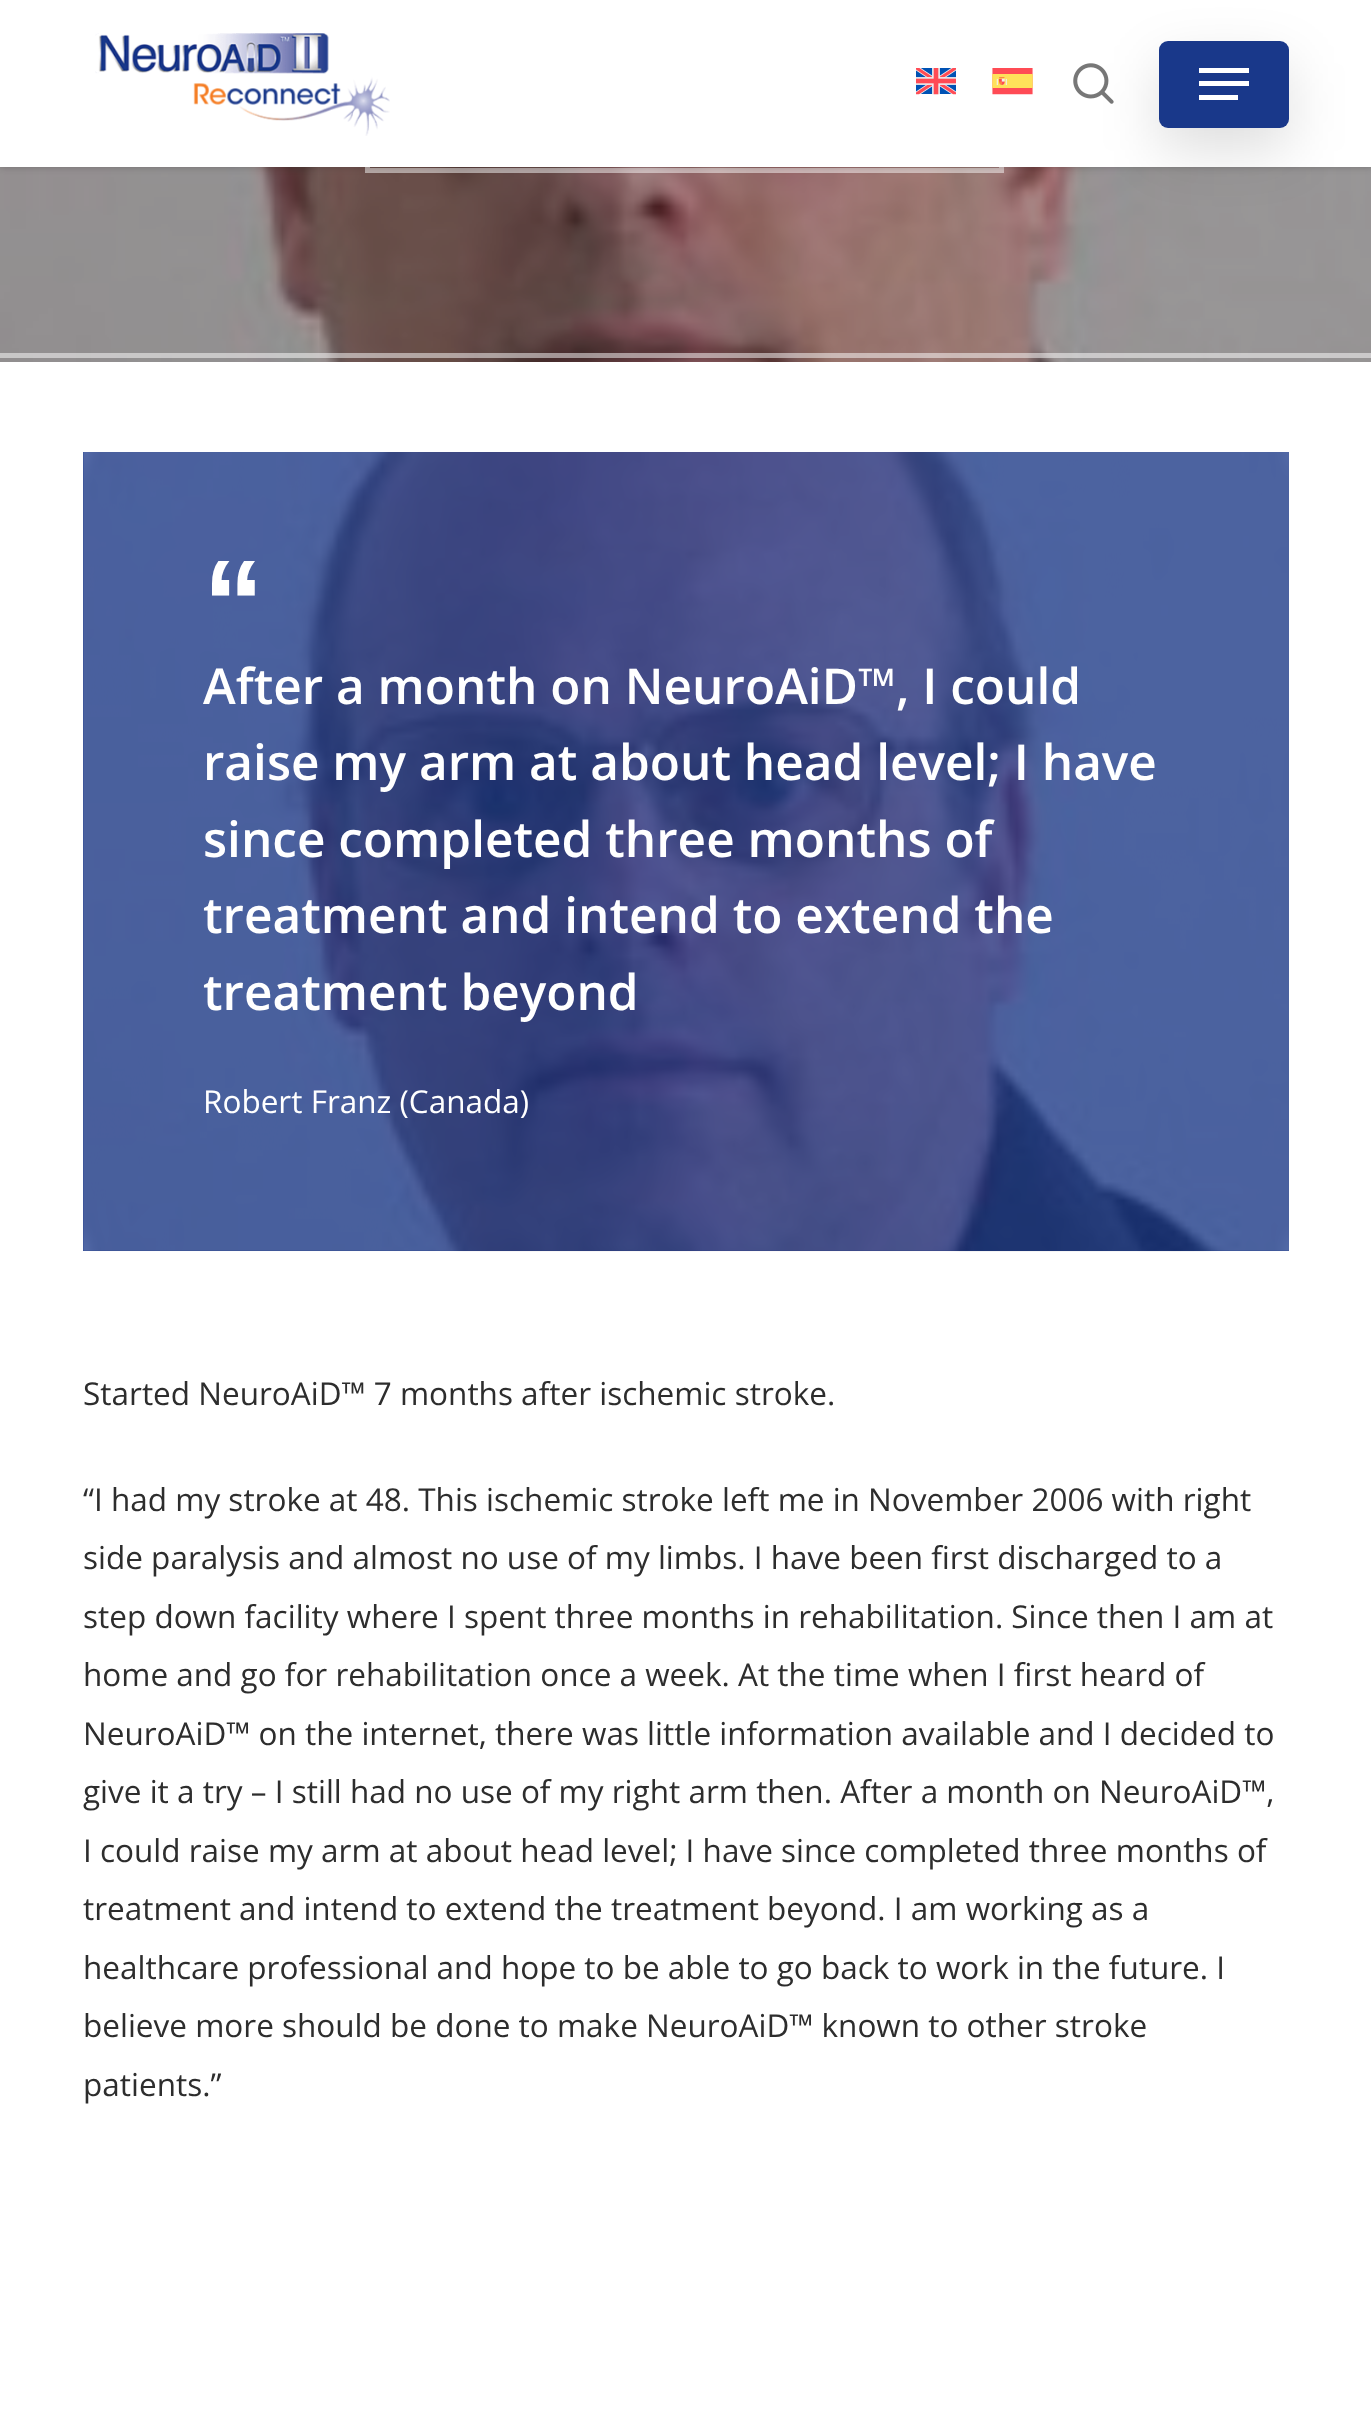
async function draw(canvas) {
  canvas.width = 1371
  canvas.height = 2414
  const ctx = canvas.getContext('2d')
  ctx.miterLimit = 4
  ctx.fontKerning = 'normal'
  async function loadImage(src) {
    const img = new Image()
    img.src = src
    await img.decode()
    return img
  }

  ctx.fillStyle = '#fff'
  ctx.fillRect(0, 0, 1371, 2414)
  ctx.drawImage(await loadImage('image4.png'), 0, 167, 1371, 195)
  ctx.strokeStyle = '#ffffff80'
  ctx.lineWidth = 5
  ctx.strokeRect(367.5, 79.5, 634, 91)
  ctx.fillStyle = '#00000038'
  ctx.filter = 'blur(3.5px)'
  ctx.beginPath()
  ctx.rect(0, 0, 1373, 167)
  ctx.fill()
  ctx.filter = 'none'
  ctx.fillStyle = '#fff'
  ctx.fillRect(0, 0, 1371, 167)
  ctx.drawImage(await loadImage('image0.png'), 95, 33, 295, 103)
  ctx.drawImage(await loadImage('image3.png'), 1073, 63, 41, 41)
  ctx.fillStyle = '#00000021'
  ctx.filter = 'blur(28px)'
  ctx.beginPath()
  ctx.roundRect(1159, 63, 130, 88, 9)
  ctx.fill()
  ctx.filter = 'none'
  ctx.fillStyle = '#19388a'
  ctx.beginPath()
  ctx.roundRect(1159, 41, 130, 87, 9)
  ctx.fill()
  ctx.fillStyle = '#fff'
  ctx.fillRect(1199, 68, 50, 5)
  ctx.fillRect(1199, 95, 39, 5)
  ctx.fillRect(1199, 81, 50, 5)
  ctx.drawImage(await loadImage('image1.png'), 916, 68, 40, 27)
  ctx.drawImage(await loadImage('image2.png'), 992, 68, 41, 27)
  ctx.fillStyle = '#ffffff80'
  ctx.fillRect(0, 353, 1371, 5)
  ctx.fillStyle = '#19388a'
  ctx.fillRect(83, 452, 1206, 799)
  ctx.drawImage(await loadImage('image5.png'), 83, 452, 1206, 800)
  ctx.font = 'bold 122px Liberation Sans'
  ctx.fillStyle = '#fff'
  ctx.fillText('“', 203, 645)
  ctx.font = '600 49.5px Open Sans'
  ctx.fillText('After a month on NeuroAiD™, I could', 203, 704)
  ctx.fillText('raise my arm at about head level; I have', 203, 780)
  ctx.fillText('since completed three months of', 203, 857)
  ctx.fillText('treatment and intend to extend the', 203, 933)
  ctx.fillText('treatment beyond', 203, 1010)
  ctx.font = '31.5px Open Sans'
  ctx.fillText('Robert Franz (Canada)', 203, 1113)
  ctx.fillStyle = '#2d2d2d'
  ctx.fillText('Started NeuroAiD™ 7 months after ischemic stroke.', 83, 1405)
  ctx.fillText('“I had my stroke at 48. This ischemic stroke left me in November 2006 with right', 83, 1511)
  ctx.fillText('side paralysis and almost no use of my limbs. I have been first discharged to a', 83, 1569)
  ctx.fillText('step down facility where I spent three months in rehabilitation. Since then I am at', 83, 1628)
  ctx.fillText('home and go for rehabilitation once a week. At the time when I first heard of', 83, 1686)
  ctx.fillText('NeuroAiD™ on the internet, there was little information available and I decided to', 83, 1745)
  ctx.fillText('give it a try – I still had no use of my right arm then. After a month on NeuroAiD™,', 83, 1803)
  ctx.fillText('I could raise my arm at about head level; I have since completed three months of', 83, 1862)
  ctx.fillText('treatment and intend to extend the treatment beyond. I am working as a', 83, 1920)
  ctx.fillText('healthcare professional and hope to be able to go back to work in the future. I', 83, 1979)
  ctx.fillText('believe more should be done to make NeuroAiD™ known to other stroke', 83, 2037)
  ctx.fillText('patients.”', 83, 2096)
}

draw(document.querySelector('canvas'))
